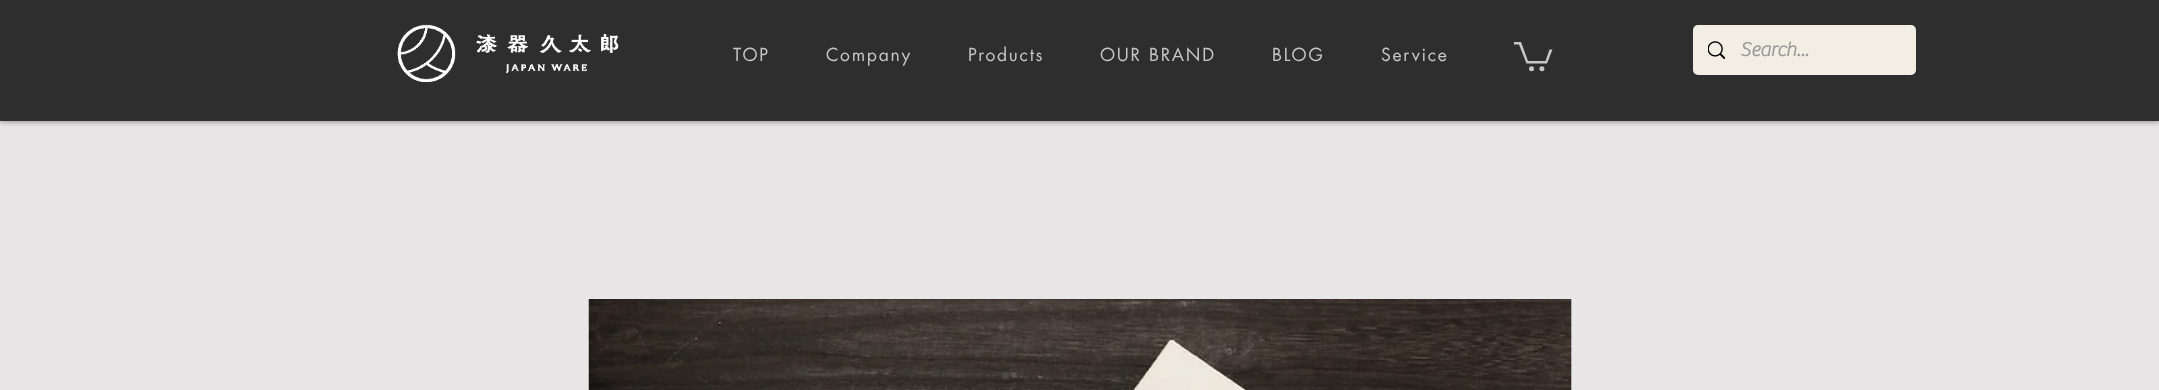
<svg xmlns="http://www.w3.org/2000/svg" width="2159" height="390">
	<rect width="100%" height="100%" fill="#E8E6E6" />
	<rect x="0" y="0" width="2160" height="121" fill="#000000" fill-opacity="0.5" filter="blur(3px)" />
	<rect x="0" y="0" width="2159" height="121" fill="#2F2E2E" />
	<image x="397" y="24" width="222" height="58" href="assets/img1.png" />
	<g font-family="futura" font-size="17.5" letter-spacing="1.75" fill="#C7C7C7">
		<text x="733" y="61">TOP</text>
		<text x="826" y="61">Company</text>
		<text x="968" y="61">Products</text>
		<text x="1100" y="61">OUR BRAND</text>
		<text x="1272" y="61">BLOG</text>
		<text x="1381" y="61">Service</text>
	</g>
	<path d="M1552.5 49.5L1547 63.5H1526.5L1519 44.5H1514V42H1521L1528 61H1545.5L1549.5 49.5" fill="#C7C7C7" />
	<circle cx="1541.9" cy="68.7" r="2.5" fill="#C7C7C7" />
	<circle cx="1531.5" cy="68.7" r="2.5" fill="#C7C7C7" />
	<rect x="1693" y="25" width="223" height="50" rx="5" fill="#F2EEE4" />
	<image x="1708" y="41" width="17" height="18" href="assets/img2.png" />
	<text x="1740" y="56" font-family="'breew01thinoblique'" font-size="20" font-weight="700" fill="#999999">Search...</text>
	<image x="588" y="299" width="984" height="91" href="assets/img3.png" />
</svg>
